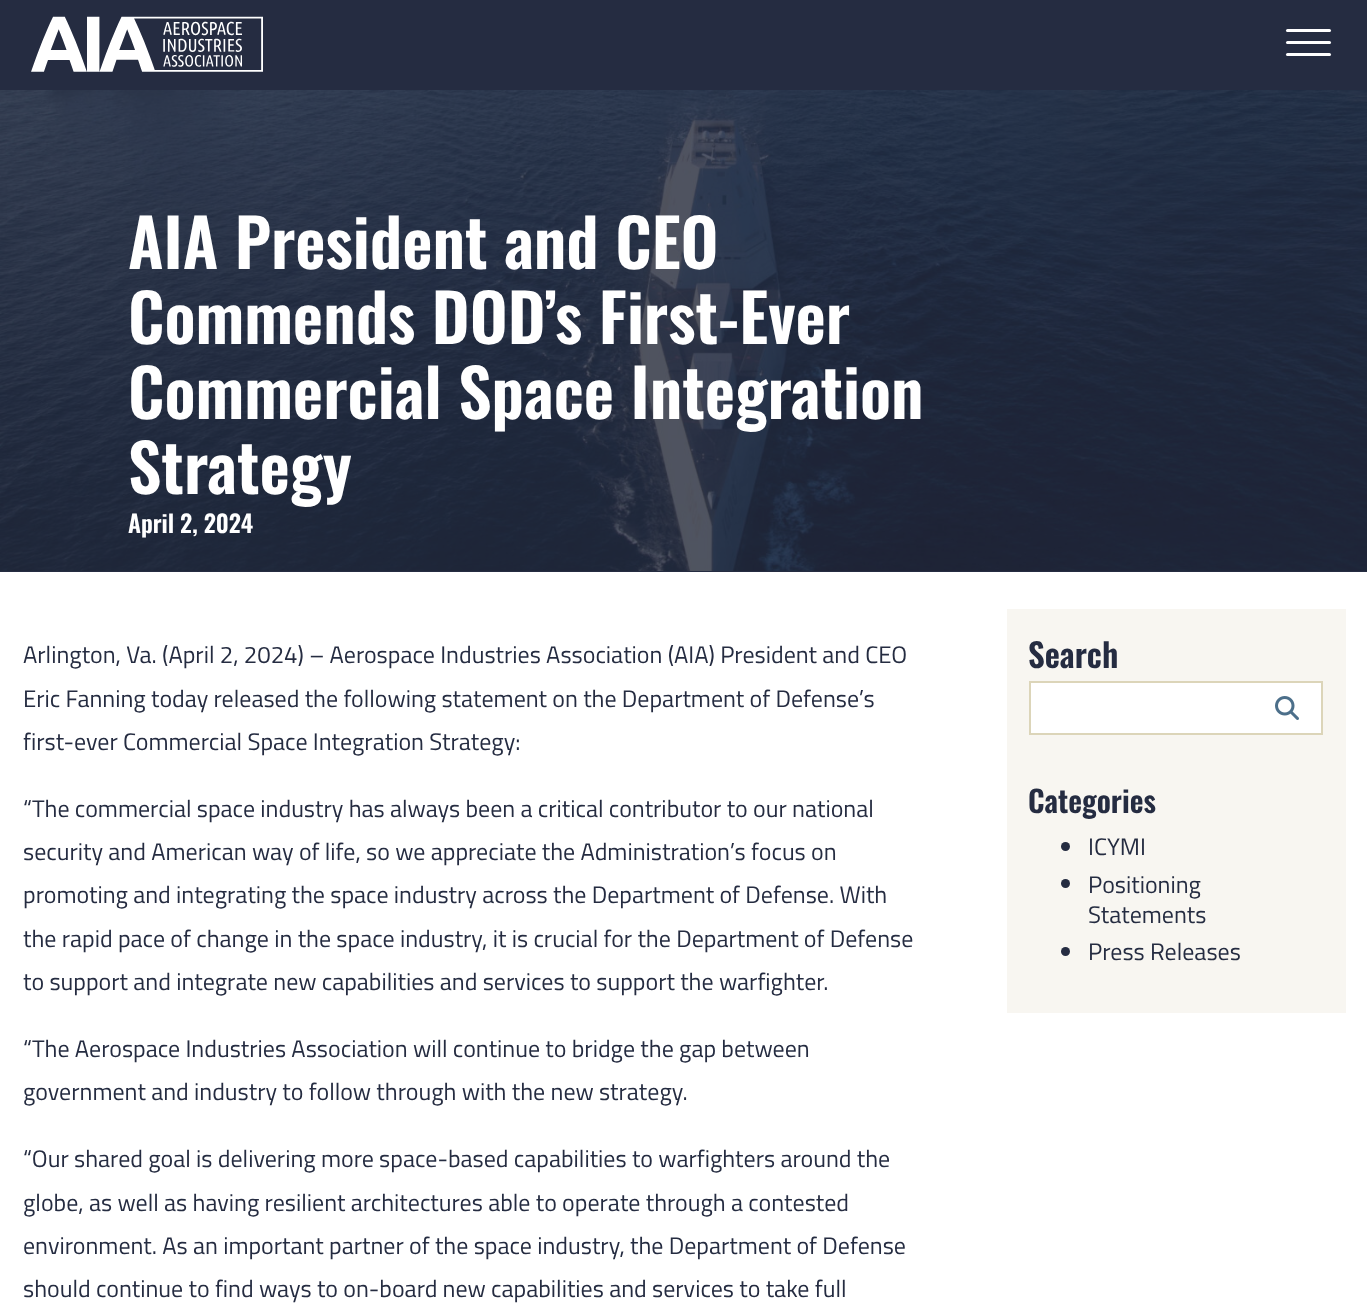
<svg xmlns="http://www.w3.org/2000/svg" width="1367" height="1306">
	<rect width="100%" height="100%" fill="#FFFFFF" />
	<rect x="0" y="0" width="1367" height="572" fill="#252C41" />
	<image x="31" y="16" width="232" height="56" href="assets/img1.png" />
	<rect x="1286" y="29" width="45" height="3" rx="1.5" fill="#FFFFFF" />
	<rect x="1286" y="41" width="45" height="3" rx="1.5" fill="#FFFFFF" />
	<rect x="1286" y="53" width="45" height="3" rx="1.5" fill="#FFFFFF" />
	<image x="0" y="90" width="1367" height="481" href="assets/img2.png" />
	<g font-family="Oswald" font-size="66" font-weight="600" fill="#FFFFFF">
		<text x="128" y="269">AIA President and CEO</text>
		<text x="128" y="344">Commends DOD’s First-Ever</text>
		<text x="128" y="419">Commercial Space Integration</text>
		<text x="128" y="494">Strategy</text>
	</g>
	<text x="128" y="533" font-family="Oswald" font-size="24" font-weight="600" fill="#FFFFFF">April 2, 2024</text>
	<g font-family="Titillium Web" font-size="24" fill="#252C41">
		<text x="23" y="663">Arlington, Va. (April 2, 2024) – Aerospace Industries Association (AIA) President and CEO</text>
		<text x="23" y="707">Eric Fanning today released the following statement on the Department of Defense’s</text>
		<text x="23" y="750">first-ever Commercial Space Integration Strategy:</text>
		<text x="23" y="817">“The commercial space industry has always been a critical contributor to our national</text>
		<text x="23" y="860">security and American way of life, so we appreciate the Administration’s focus on</text>
		<text x="23" y="903">promoting and integrating the space industry across the Department of Defense. With</text>
		<text x="23" y="947">the rapid pace of change in the space industry, it is crucial for the Department of Defense</text>
		<text x="23" y="990">to support and integrate new capabilities and services to support the warfighter.</text>
		<text x="23" y="1057">“The Aerospace Industries Association will continue to bridge the gap between</text>
		<text x="23" y="1100">government and industry to follow through with the new strategy.</text>
		<text x="23" y="1167">“Our shared goal is delivering more space-based capabilities to warfighters around the</text>
		<text x="23" y="1211">globe, as well as having resilient architectures able to operate through a contested</text>
		<text x="23" y="1254">environment. As an important partner of the space industry, the Department of Defense</text>
		<text x="23" y="1297">should continue to find ways to on-board new capabilities and services to take full</text>
	</g>
	<rect x="1007" y="609" width="339" height="404" fill="#F8F6F1" />
	<text x="1028" y="668" font-family="Oswald" font-size="33" font-weight="600" fill="#252C41">Search</text>
	<rect x="1030" y="682" width="292" height="52" fill="#FFFFFF" stroke="#DCD5B9" stroke-width="2" />
	<image x="1275" y="696" width="24" height="24" href="assets/img3.png" />
	<text x="1028" y="813" font-family="Oswald" font-size="30" font-weight="600" fill="#252C41">Categories</text>
	<circle cx="1065.5" cy="846.5" r="4.5" fill="#252C41" />
	<text x="1088" y="855" font-family="Titillium Web" font-size="24" fill="#252C41">ICYMI</text>
	<circle cx="1065.5" cy="883.5" r="4.5" fill="#252C41" />
	<g font-family="Titillium Web" font-size="24" fill="#252C41">
		<text x="1088" y="893">Positioning</text>
		<text x="1088" y="923">Statements</text>
	</g>
	<circle cx="1065.5" cy="951.5" r="4.5" fill="#252C41" />
	<text x="1088" y="960" font-family="Titillium Web" font-size="24" fill="#252C41">Press Releases</text>
</svg>
